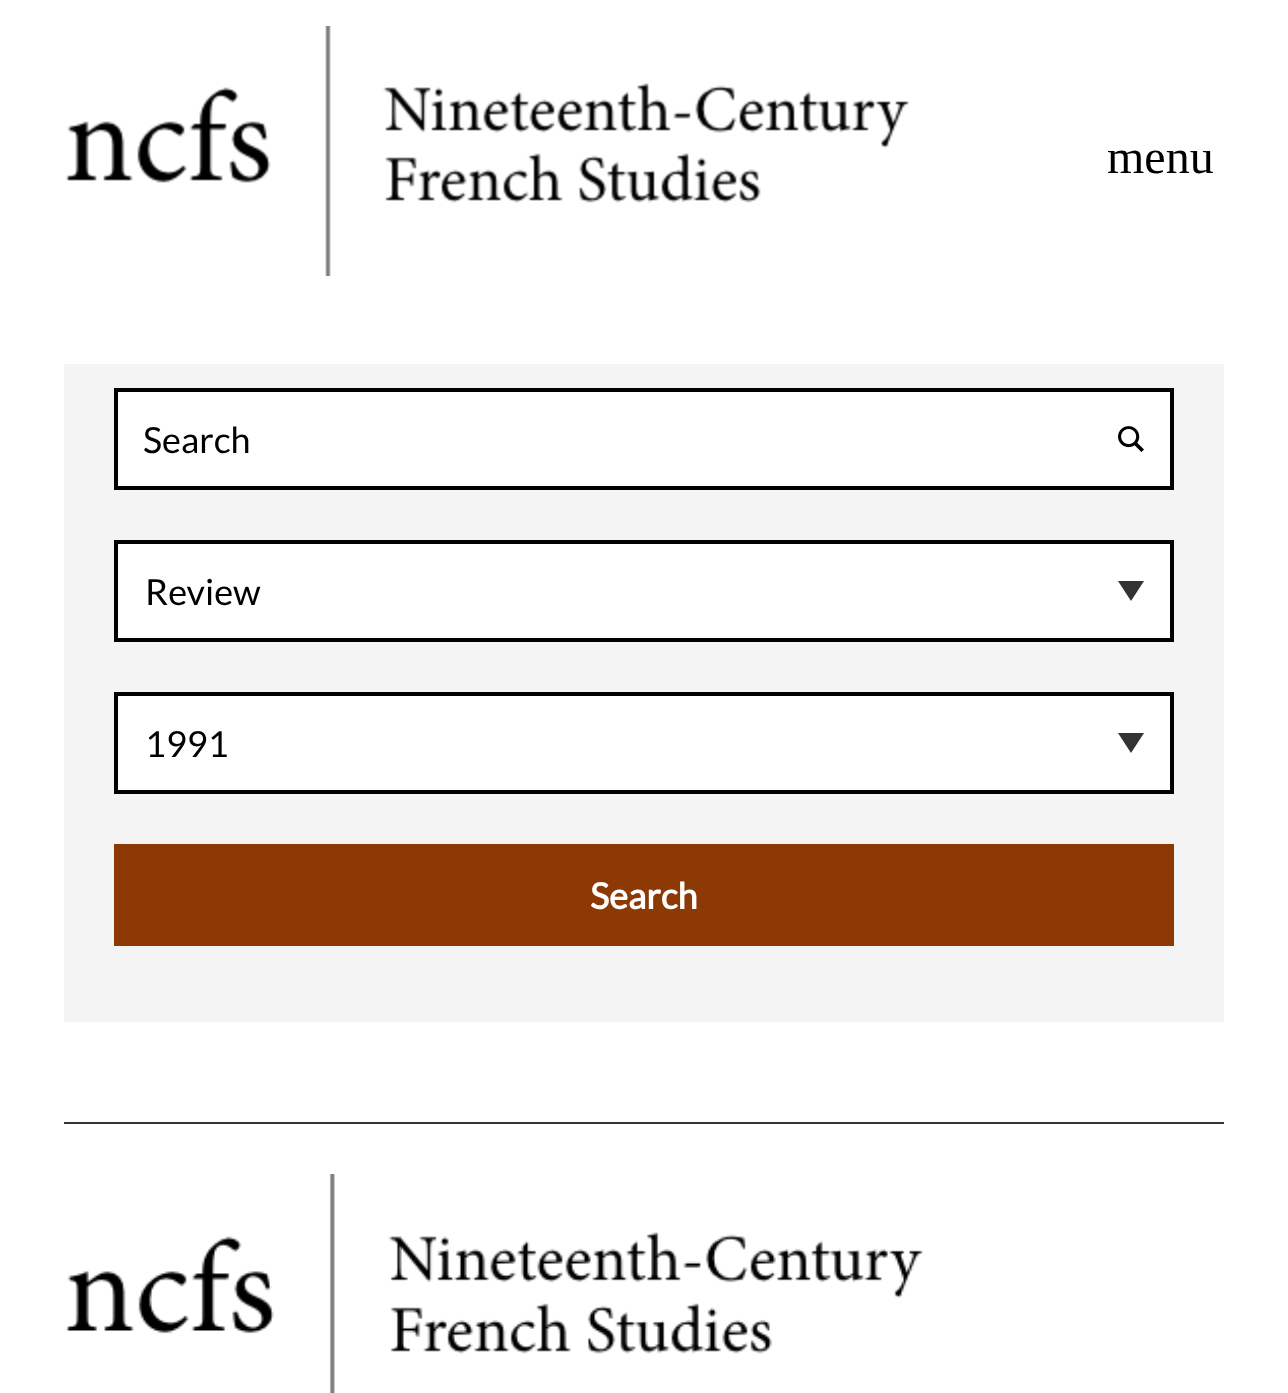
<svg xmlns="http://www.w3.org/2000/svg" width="1288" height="1393">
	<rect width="100%" height="100%" fill="#FFFFFF" />
	<image x="65" y="26" width="844" height="250" href="assets/img1.png" />
	<text x="1107" y="173" font-family="Liberation Serif" font-size="48" fill="#000000">menu</text>
	<rect x="64" y="364" width="1160" height="658" fill="#F4F4F4" />
	<rect x="118" y="392" width="1052" height="94" fill="#FFFFFF" />
	<image x="1118" y="426" width="26" height="26" href="assets/img2.png" />
	<rect x="116" y="390" width="1056" height="98" fill="none" stroke="#000000" stroke-width="4" />
	<text x="143" y="453" font-family="Lato" font-size="36" fill="#000000">Search</text>
	<rect x="118" y="544" width="1052" height="94" fill="#FFFFFF" />
	<path d="M1118 581H1144L1131 601Z" fill="#333333" />
	<rect x="116" y="542" width="1056" height="98" fill="none" stroke="#000000" stroke-width="4" />
	<text x="145" y="605" font-family="Lato" font-size="36" fill="#000000">Review</text>
	<rect x="118" y="696" width="1052" height="94" fill="#FFFFFF" />
	<path d="M1118 733H1144L1131 753Z" fill="#333333" />
	<rect x="116" y="694" width="1056" height="98" fill="none" stroke="#000000" stroke-width="4" />
	<text x="145" y="757" font-family="Lato" font-size="36" fill="#000000">1991</text>
	<rect x="114" y="844" width="1060" height="102" fill="#8C3904" />
	<text x="590" y="909" font-family="Lato" font-size="36" font-weight="700" fill="#FFFFFF">Search</text>
	<rect x="64" y="1122" width="1160" height="2" fill="#333333" />
	<image x="65" y="1174" width="858" height="219" href="assets/img3.png" />
</svg>
